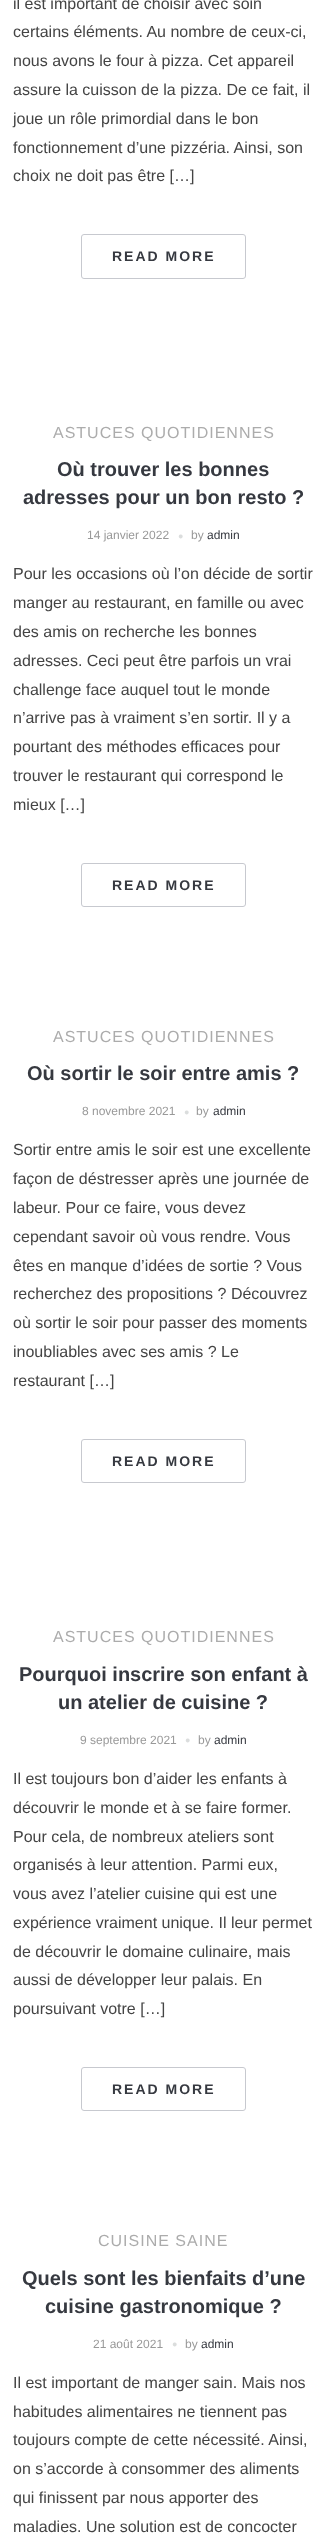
<svg xmlns="http://www.w3.org/2000/svg" width="327" height="2535">
	<rect width="100%" height="100%" fill="#FFFFFF" />
	<g font-family="Liberation Sans" font-size="16" fill="#444444">
		<text x="13" y="9">il est important de choisir avec soin</text>
		<text x="13" y="37">certains éléments. Au nombre de ceux-ci,</text>
		<text x="13" y="66">nous avons le four à pizza. Cet appareil</text>
		<text x="13" y="95">assure la cuisson de la pizza. De ce fait, il</text>
		<text x="13" y="124">joue un rôle primordial dans le bon</text>
		<text x="13" y="153">fonctionnement d’une pizzéria. Ainsi, son</text>
		<text x="13" y="181">choix ne doit pas être […]</text>
	</g>
	<rect x="81.5" y="234.5" width="164" height="44" rx="2.5" fill="none" stroke="#C7C9CF" />
	<text x="112" y="261" font-family="Liberation Sans" font-size="14" font-weight="700" letter-spacing="2" fill="#363940">READ MORE</text>
	<text x="53" y="438" font-family="Liberation Sans" font-size="16" letter-spacing="1" fill="#ACACAC">ASTUCES QUOTIDIENNES</text>
	<g font-family="Liberation Sans" font-size="20" font-weight="700" fill="#363940">
		<text x="57" y="476">Où trouver les bonnes</text>
		<text x="23" y="504">adresses pour un bon resto ?</text>
	</g>
	<text x="87" y="539" font-family="Liberation Sans" font-size="12" fill="#999999">14 janvier 2022</text>
	<text x="178" y="539" font-family="Liberation Sans" font-size="9" fill="#DBDDDD">●</text>
	<text x="191" y="539" font-family="Liberation Sans" font-size="12" fill="#999999">by</text>
	<text x="207" y="539" font-family="Liberation Sans" font-size="12" fill="#363940">admin</text>
	<g font-family="Liberation Sans" font-size="16" fill="#444444">
		<text x="13" y="579">Pour les occasions où l’on décide de sortir</text>
		<text x="13" y="608">manger au restaurant, en famille ou avec</text>
		<text x="13" y="637">des amis on recherche les bonnes</text>
		<text x="13" y="666">adresses. Ceci peut être parfois un vrai</text>
		<text x="13" y="695">challenge face auquel tout le monde</text>
		<text x="13" y="723">n’arrive pas à vraiment s’en sortir. Il y a</text>
		<text x="13" y="752">pourtant des méthodes efficaces pour</text>
		<text x="13" y="781">trouver le restaurant qui correspond le</text>
		<text x="13" y="810">mieux […]</text>
	</g>
	<rect x="81.5" y="863.5" width="164" height="43" rx="2.5" fill="none" stroke="#C7C9CF" />
	<text x="112" y="890" font-family="Liberation Sans" font-size="14" font-weight="700" letter-spacing="2" fill="#363940">READ MORE</text>
	<text x="53" y="1042" font-family="Liberation Sans" font-size="16" letter-spacing="1" fill="#ACACAC">ASTUCES QUOTIDIENNES</text>
	<text x="27" y="1080" font-family="Liberation Sans" font-size="20" font-weight="700" fill="#363940">Où sortir le soir entre amis ?</text>
	<text x="82" y="1115" font-family="Liberation Sans" font-size="12" fill="#999999">8 novembre 2021</text>
	<text x="184" y="1115" font-family="Liberation Sans" font-size="9" fill="#DBDDDD">●</text>
	<text x="196" y="1115" font-family="Liberation Sans" font-size="12" fill="#999999">by</text>
	<text x="213" y="1115" font-family="Liberation Sans" font-size="12" fill="#363940">admin</text>
	<g font-family="Liberation Sans" font-size="16" fill="#444444">
		<text x="13" y="1155">Sortir entre amis le soir est une excellente</text>
		<text x="13" y="1184">façon de déstresser après une journée de</text>
		<text x="13" y="1213">labeur. Pour ce faire, vous devez</text>
		<text x="13" y="1242">cependant savoir où vous rendre. Vous</text>
		<text x="13" y="1271">êtes en manque d’idées de sortie ? Vous</text>
		<text x="13" y="1299">recherchez des propositions ? Découvrez</text>
		<text x="13" y="1328">où sortir le soir pour passer des moments</text>
		<text x="13" y="1357">inoubliables avec ses amis ? Le</text>
		<text x="13" y="1386">restaurant […]</text>
	</g>
	<rect x="81.5" y="1439.5" width="164" height="43" rx="2.5" fill="none" stroke="#C7C9CF" />
	<text x="112" y="1466" font-family="Liberation Sans" font-size="14" font-weight="700" letter-spacing="2" fill="#363940">READ MORE</text>
	<text x="53" y="1642" font-family="Liberation Sans" font-size="16" letter-spacing="1" fill="#ACACAC">ASTUCES QUOTIDIENNES</text>
	<g font-family="Liberation Sans" font-size="20" font-weight="700" fill="#363940">
		<text x="19" y="1681">Pourquoi inscrire son enfant à</text>
		<text x="58" y="1709">un atelier de cuisine ?</text>
	</g>
	<text x="80" y="1744" font-family="Liberation Sans" font-size="12" fill="#999999">9 septembre 2021</text>
	<text x="185" y="1743" font-family="Liberation Sans" font-size="9" fill="#DBDDDD">●</text>
	<text x="198" y="1744" font-family="Liberation Sans" font-size="12" fill="#999999">by</text>
	<text x="214" y="1744" font-family="Liberation Sans" font-size="12" fill="#363940">admin</text>
	<g font-family="Liberation Sans" font-size="16" fill="#444444">
		<text x="13" y="1784">Il est toujours bon d’aider les enfants à</text>
		<text x="13" y="1813">découvrir le monde et à se faire former.</text>
		<text x="13" y="1842">Pour cela, de nombreux ateliers sont</text>
		<text x="13" y="1870">organisés à leur attention. Parmi eux,</text>
		<text x="13" y="1899">vous avez l’atelier cuisine qui est une</text>
		<text x="13" y="1928">expérience vraiment unique. Il leur permet</text>
		<text x="13" y="1957">de découvrir le domaine culinaire, mais</text>
		<text x="13" y="1985">aussi de développer leur palais. En</text>
		<text x="13" y="2014">poursuivant votre […]</text>
	</g>
	<rect x="81.5" y="2067.5" width="164" height="43" rx="2.5" fill="none" stroke="#C7C9CF" />
	<text x="112" y="2094" font-family="Liberation Sans" font-size="14" font-weight="700" letter-spacing="2" fill="#363940">READ MORE</text>
	<text x="98" y="2246" font-family="Liberation Sans" font-size="16" letter-spacing="1" fill="#ACACAC">CUISINE SAINE</text>
	<g font-family="Liberation Sans" font-size="20" font-weight="700" fill="#363940">
		<text x="22" y="2285">Quels sont les bienfaits d’une</text>
		<text x="45" y="2313">cuisine gastronomique ?</text>
	</g>
	<text x="93" y="2348" font-family="Liberation Sans" font-size="12" fill="#999999">21 août 2021</text>
	<text x="172" y="2347" font-family="Liberation Sans" font-size="9" fill="#DBDDDD">●</text>
	<text x="185" y="2348" font-family="Liberation Sans" font-size="12" fill="#999999">by</text>
	<text x="201" y="2348" font-family="Liberation Sans" font-size="12" fill="#363940">admin</text>
	<g font-family="Liberation Sans" font-size="16" fill="#444444">
		<text x="13" y="2388">Il est important de manger sain. Mais nos</text>
		<text x="13" y="2417">habitudes alimentaires ne tiennent pas</text>
		<text x="13" y="2445">toujours compte de cette nécessité. Ainsi,</text>
		<text x="13" y="2474">on s’accorde à consommer des aliments</text>
		<text x="13" y="2503">qui finissent par nous apporter des</text>
		<text x="13" y="2532">maladies. Une solution est de concocter</text>
	</g>
</svg>
